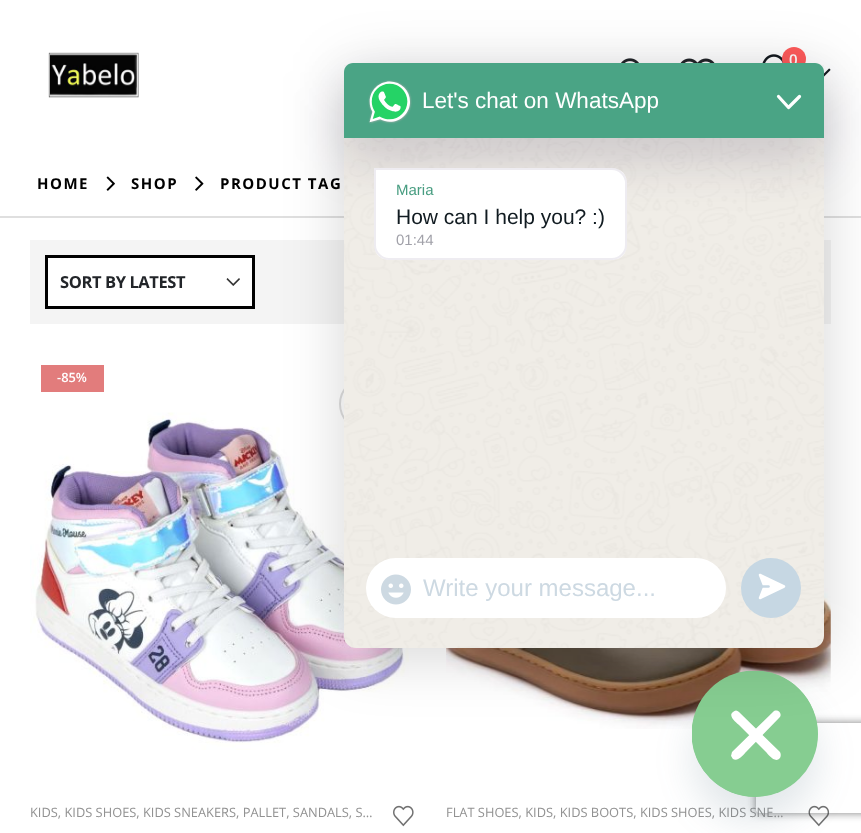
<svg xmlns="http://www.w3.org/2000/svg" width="861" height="833">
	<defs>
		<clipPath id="clip1"><path d="M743 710H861V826H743ZM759 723H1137C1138.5 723 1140 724.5 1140 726V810C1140 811.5 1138.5 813 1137 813H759C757.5 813 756 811.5 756 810V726C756 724.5 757.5 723 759 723Z" clip-rule="evenodd" /></clipPath>
		<clipPath id="clip2"><rect x="692" y="671" width="126" height="126" /></clipPath>
	</defs>
	<rect width="100%" height="100%" fill="#FFFFFF" />
	<image x="48" y="52" width="91" height="46" href="assets/img1.png" />
	<image x="621" y="58" width="18" height="5" href="assets/img2.png" />
	<image x="680" y="58" width="35" height="5" href="assets/img3.png" />
	<image x="762" y="54" width="21" height="9" href="assets/img4.png" />
	<circle cx="794" cy="59" r="12" fill="#FF5B5B" />
	<text x="789" y="65" font-family="Open Sans" font-size="15" font-weight="600" fill="#FFFFFF">0</text>
	<image x="824" y="68" width="7" height="9" href="assets/img5.png" />
	<rect x="0" y="216" width="861" height="2" fill="#DFDFDF" />
	<text x="37" y="189" font-family="Open Sans" font-size="15" font-weight="700" letter-spacing="1.5" fill="#000000">HOME</text>
	<image x="106" y="176" width="9" height="15" href="assets/img6.png" />
	<text x="131" y="189" font-family="Open Sans" font-size="15" font-weight="700" letter-spacing="1.5" fill="#000000">SHOP</text>
	<image x="195" y="176" width="9" height="15" href="assets/img7.png" />
	<text x="220" y="189" font-family="Open Sans" font-size="15" font-weight="700" letter-spacing="1.5" fill="#000000">PRODUCT TAG</text>
	<rect x="30" y="240" width="801" height="84" fill="#F4F4F4" />
	<rect x="48" y="258" width="204" height="48" fill="#FFFFFF" />
	<image x="226" y="278" width="14" height="8" href="assets/img8.png" />
	<rect x="46.5" y="256.5" width="207" height="51" fill="none" stroke="#000000" stroke-width="3" />
	<text x="60" y="288" font-family="Open Sans" font-size="16.5" font-weight="700" letter-spacing="-0.4" fill="#222529">SORT BY LATEST</text>
	<rect x="41" y="365" width="63" height="27" fill="#E27C7C" />
	<text x="57" y="382" font-family="Open Sans" font-size="12.85" font-weight="600" fill="#FFFFFF">-85%</text>
	<image x="30" y="412" width="379" height="338" href="assets/img9.png" />
	<circle cx="366" cy="404" r="26" fill="none" stroke="#DDDDDD" stroke-width="2" />
	<text x="30" y="817" font-family="Open Sans" font-size="12.85" fill="#929292">KIDS, KIDS SHOES, KIDS SNEAKERS, PALLET, SANDALS, S…</text>
	<image x="393" y="805" width="21" height="22" href="assets/img10.png" />
	<image x="446" y="478" width="385" height="251" href="assets/img11.png" />
	<text x="446" y="817" font-family="Open Sans" font-size="12.85" fill="#929292">FLAT SHOES, KIDS, KIDS BOOTS, KIDS SHOES, KIDS SNE…</text>
	<g clip-path="url(#clip1)">
		<rect x="756" y="723" width="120" height="90" rx="3" fill="#808080" filter="blur(4px)" />
	</g>
	<image x="808" y="805" width="22" height="22" href="assets/img12.png" />
	<rect x="692" y="695" width="126" height="126" rx="63" fill="#49687E" fill-opacity="0.16" filter="blur(18px)" />
	<circle cx="755" cy="734" r="63" fill="#86CD91" />
	<g clip-path="url(#clip2)">
		<circle cx="754.5" cy="733.5" r="63" fill="#86CD91" />
	</g>
	<path d="M739 712L780 752C781 754 781 756 780 758C775 764 768 754 766 752L739 725C738 724 727 716 733 712C735 710 737 710 739 712Z" fill="#FFFFFF" />
	<path d="M779 718L746 752C744 754 738 762 733 759C732 758 732 757 731 756L732 752L774 711C779 709 783 715 779 718Z" fill="#FFFFFF" />
	<rect x="344" y="71" width="480" height="585" rx="9" fill="#000000" fill-opacity="0.16" filter="blur(30px)" />
	<rect x="344" y="63" width="480" height="585" rx="12" fill="#F0EDE7" />
	<image x="344" y="65" width="480" height="583" href="assets/img13.png" />
	<rect x="344" y="87" width="480" height="75" rx="9" fill="#1A0E35" fill-opacity="0.16" filter="blur(24px)" />
	<path d="M353 63H815C820 63 824 67 824 72V138H344V72C344 67 348 63 353 63Z" fill="#4AA485" />
	<image x="368" y="80" width="44" height="44" href="assets/img14.png" />
	<text x="422" y="108" font-family="Liberation Sans" font-size="22.5" fill="#FFFFFF">Let's chat on WhatsApp</text>
	<path d="M778.5 96.5L788.5 107.5L799.5 96.5" fill="none" stroke="#FFFFFF" stroke-width="3.2" stroke-linecap="round" stroke-linejoin="round" />
	<path d="M374 168H612C620.5 168 627 174.5 627 183V245C627 253.5 620.5 260 612 260H389C380.5 260 374 253.5 374 245Z" fill="#FFFFFF" />
	<path d="M375 169H612C619.5 169 626 175.5 626 183V245C626 252.5 619.5 259 612 259H389C381.5 259 375 252.5 375 245Z" fill="none" stroke="#221147" stroke-opacity="0.08" stroke-width="2" />
	<text x="396" y="195" font-family="Liberation Sans" font-size="15" fill="#489D81">Maria</text>
	<text x="396" y="224" font-family="Liberation Sans" font-size="21" fill="#111B21">How can I help you? :)</text>
	<text x="396" y="245" font-family="Liberation Sans" font-size="15" fill="#A1A1A9">01:44</text>
	<rect x="366" y="558" width="360" height="60" rx="30" fill="#FFFFFF" />
	<image x="381" y="574" width="30" height="31" href="assets/img15.png" />
	<text x="423" y="596" font-family="Liberation Sans" font-size="24" fill="#CDD9E2">Write your message...</text>
	<circle cx="771" cy="588" r="30" fill="#C6D7E3" />
	<path d="M784 586.5L760 598L764.5 586.5L760 575Z" fill="#FFFFFF" stroke="#FFFFFF" stroke-width="2.5" stroke-linecap="round" stroke-linejoin="round" />
	<path d="M768.5 586.5H760.5" fill="none" stroke="#C6D7E3" stroke-width="2.5" stroke-linecap="round" stroke-linejoin="round" />
</svg>
